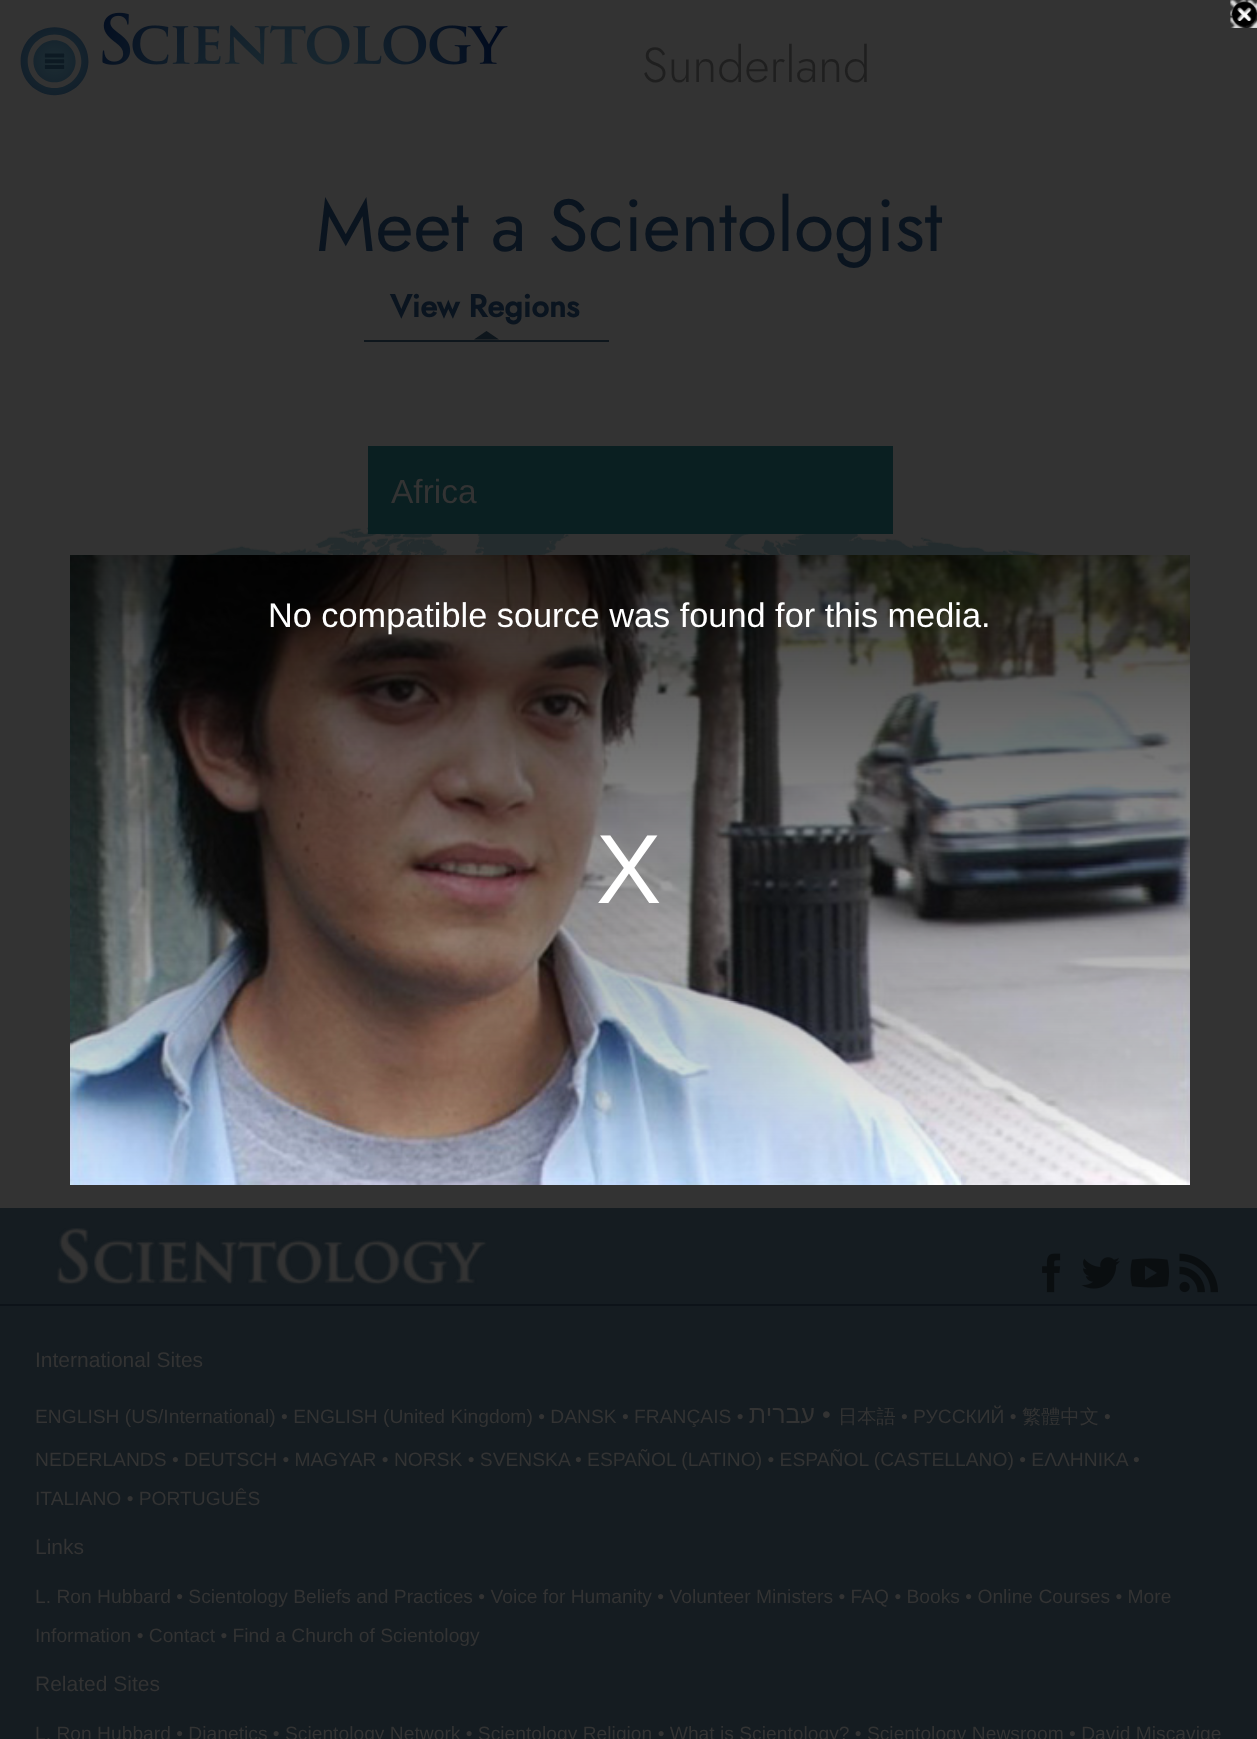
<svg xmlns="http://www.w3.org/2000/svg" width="1257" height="1739">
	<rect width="100%" height="100%" fill="#333333" />
	<image x="20" y="27" width="69" height="69" href="assets/img1.png" />
	<image x="102" y="12" width="406" height="53" href="assets/img2.png" />
	<text x="642" y="82" font-family="Jost" font-size="49" font-weight="300" fill="#1F1F1F">Sunderland</text>
	<text x="316" y="251" font-family="Jost" font-size="73.5" fill="#0A141F">Meet a Scientologist</text>
	<rect x="364" y="340" width="245" height="2" fill="#0E161C" />
	<text x="390" y="317" font-family="Jost" font-size="31.5" font-weight="700" fill="#0A141F">View Regions</text>
	<path d="M499 339.5H474L486.5 331Z" fill="#0E161C" />
	<image x="204" y="527" width="839" height="28" href="assets/img3.png" />
	<rect x="368" y="446" width="525" height="88" fill="#0A1F21" />
	<text x="391" y="503" font-family="Liberation Sans" font-size="33.5" fill="#333333">Africa</text>
	<image x="1230" y="0" width="27" height="28" href="assets/img4.png" />
	<image x="1231" y="1" width="26" height="27" href="assets/img5.png" />
	<image x="70" y="555" width="1120" height="630" href="assets/img6.png" />
	<text x="268" y="627" font-family="Liberation Sans" font-size="34.3" fill="#FFFFFF">No compatible source was found for this media.</text>
	<text x="596" y="903" font-family="Liberation Sans" font-size="98" fill="#FFFFFF">X</text>
	<rect x="0" y="1208" width="1257" height="531" fill="#151C21" />
	<image x="57" y="1228" width="430" height="57" href="assets/img7.png" />
	<image x="1042" y="1253" width="19" height="40" href="assets/img8.png" />
	<image x="1081" y="1257" width="39" height="32" href="assets/img9.png" />
	<image x="1130" y="1258" width="39" height="30" href="assets/img10.png" />
	<image x="1179" y="1253" width="39" height="40" href="assets/img11.png" />
	<rect x="0" y="1304" width="1257" height="2" fill="#0D1319" />
	<text x="35" y="1367" font-family="Liberation Sans" font-size="21" fill="#333333">International Sites</text>
	<text x="35" y="1423" font-family="Liberation Sans" font-size="19.25" fill="#333333">ENGLISH (US/International) • ENGLISH (United Kingdom) • DANSK • FRANÇAIS •</text>
	<text x="815" y="1423" font-family="Liberation Sans" font-size="25" direction="rtl" fill="#333333">עברית</text>
	<text x="822" y="1423" font-family="Liberation Sans" font-size="25" fill="#333333">•</text>
	<text x="838" y="1423" font-family="WenQuanYi Zen Hei" font-size="19.25" font-weight="500" fill="#333333">日本語</text>
	<text x="901" y="1423" font-family="Liberation Sans" font-size="19.25" fill="#333333">• РУССКИЙ •</text>
	<text x="1022" y="1423" font-family="WenQuanYi Zen Hei" font-size="19.25" font-weight="500" fill="#333333">繁體中文</text>
	<g font-family="Liberation Sans" font-size="19.25" fill="#333333">
		<text x="1104" y="1423">•</text>
		<text x="35" y="1466">NEDERLANDS • DEUTSCH • MAGYAR • NORSK • SVENSKA</text>
		<text x="575" y="1466">• ESPAÑOL (LATINO) • ESPAÑOL (CASTELLANO) • ΕΛΛΗΝΙΚA</text>
		<text x="1133" y="1466">•</text>
		<text x="35" y="1505">ITALIANO • PORTUGUÊS</text>
	</g>
	<text x="35" y="1554" font-family="Liberation Sans" font-size="21" fill="#333333">Links</text>
	<g font-family="Liberation Sans" font-size="19.25" fill="#333333">
		<text x="35" y="1603">L. Ron Hubbard • Scientology Beliefs and Practices • Voice for Humanity • Volunteer Ministers • FAQ • Books • Online Courses • More</text>
		<text x="35" y="1642">Information • Contact • Find a Church of Scientology</text>
	</g>
	<text x="35" y="1691" font-family="Liberation Sans" font-size="21" fill="#333333">Related Sites</text>
	<text x="35" y="1740" font-family="Liberation Sans" font-size="19.25" fill="#333333">L. Ron Hubbard • Dianetics • Scientology Network • Scientology Religion • What is Scientology? • Scientology Newsroom • David Miscavige</text>
</svg>
